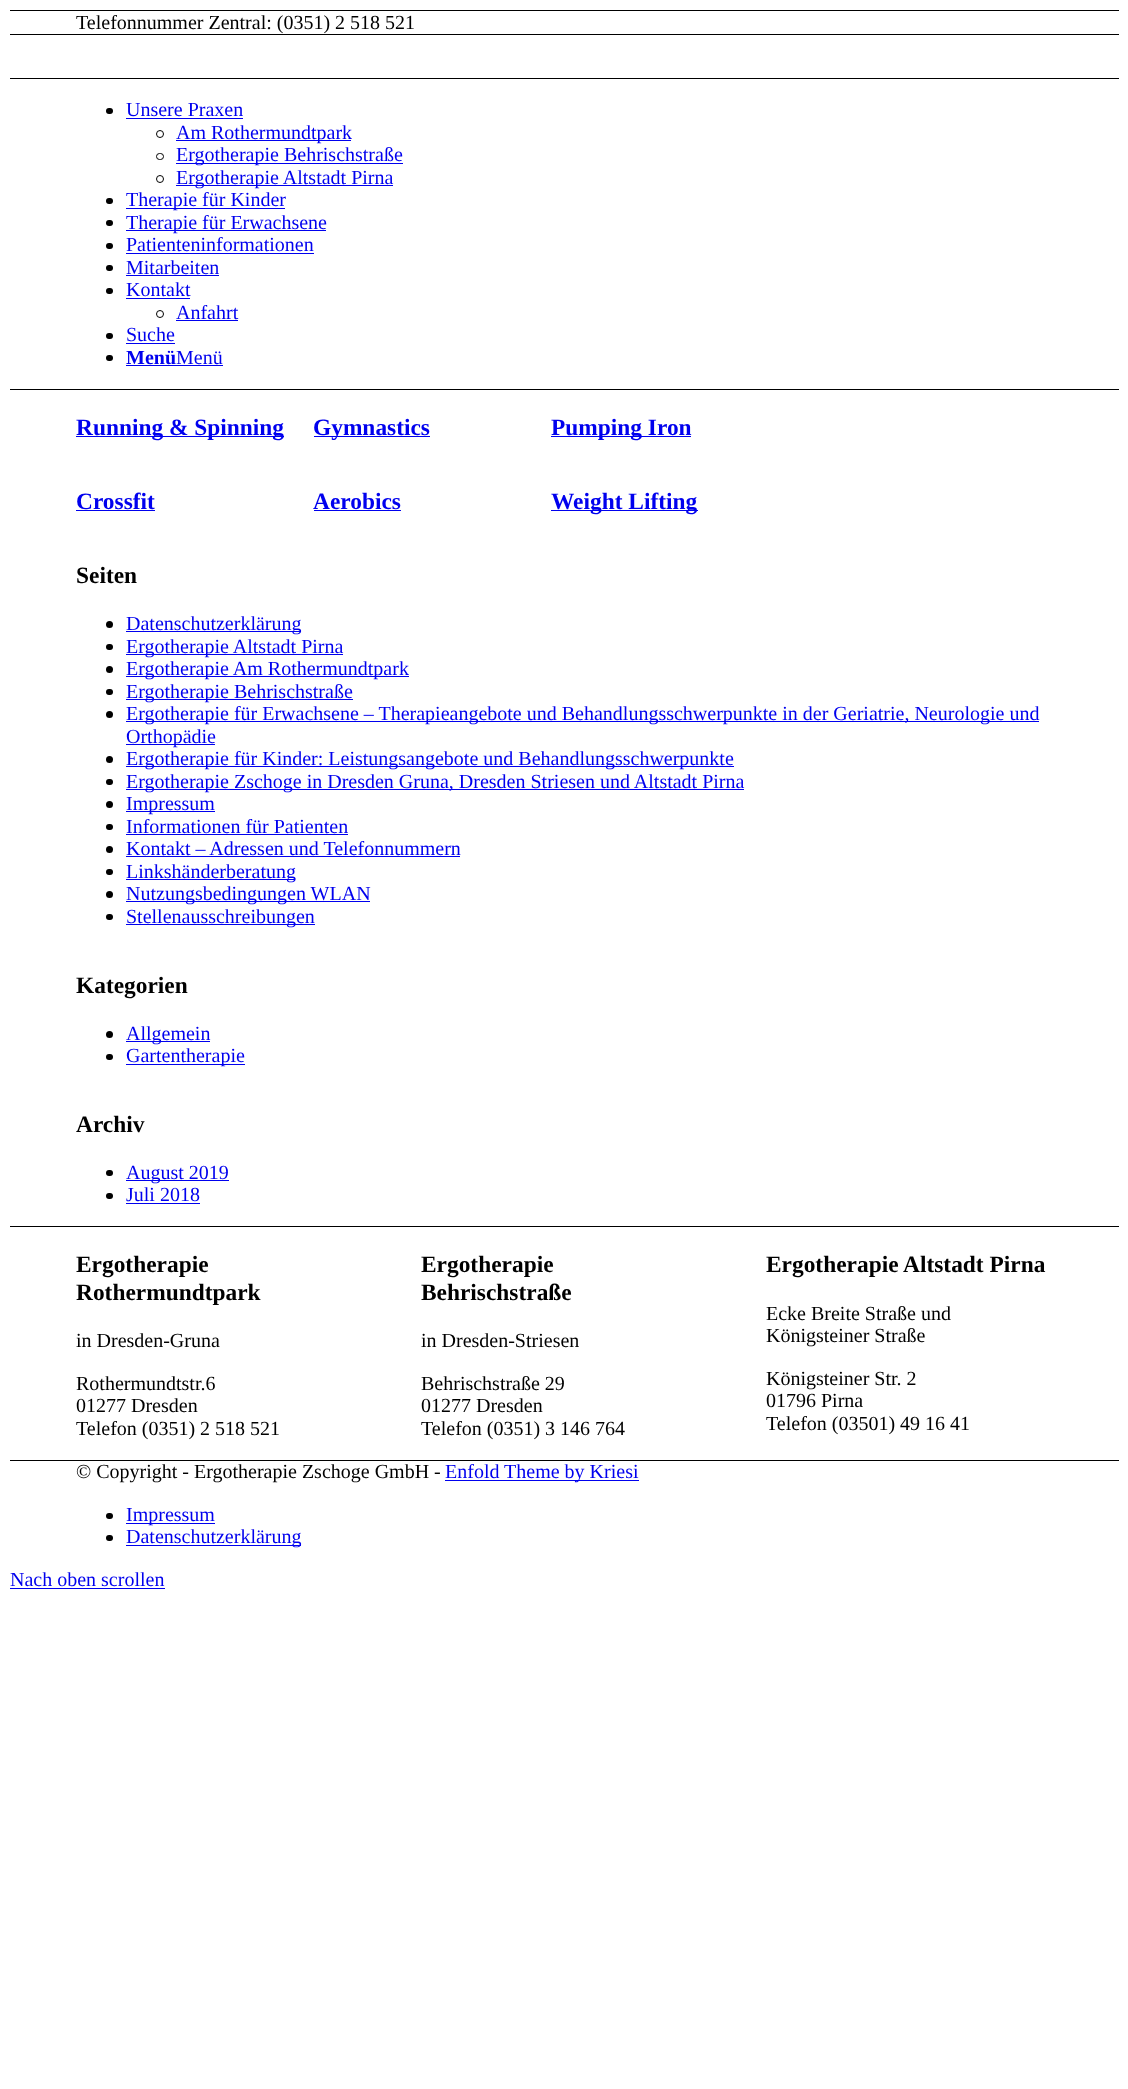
<svg xmlns="http://www.w3.org/2000/svg" width="1128" height="2089">
	<rect width="100%" height="100%" fill="#FFFFFF" />
	<rect x="10" y="10" width="1109" height="1" fill="#000000" />
	<text x="76" y="29" font-family="Liberation Serif" font-size="20" fill="#000000">Telefonnummer Zentral: (0351) 2 518 521</text>
	<rect x="10" y="34" width="1109" height="1" fill="#000000" />
	<rect x="10" y="78" width="1109" height="1" fill="#000000" />
	<rect x="106" y="108" width="7" height="6" rx="3" fill="#000000" />
	<text x="126" y="116" font-family="Liberation Serif" font-size="20" fill="#0000EE">Unsere Praxen</text>
	<rect x="126" y="118" width="117" height="1" fill="#0000EE" />
	<circle cx="160" cy="134" r="3.5" fill="none" stroke="#000000" />
	<rect x="176" y="140" width="175" height="1" fill="#0000EE" />
	<text x="176" y="139" font-family="Liberation Serif" font-size="20" fill="#0000EE">Am Rothermundtpark</text>
	<rect x="156.5" y="153.5" width="7" height="6" rx="3" fill="none" stroke="#000000" />
	<rect x="176" y="163" width="227" height="1" fill="#0000EE" />
	<text x="176" y="161" font-family="Liberation Serif" font-size="20" fill="#0000EE">Ergotherapie Behrischstraße</text>
	<circle cx="160" cy="179" r="3.5" fill="none" stroke="#000000" />
	<rect x="176" y="185" width="217" height="1" fill="#0000EE" />
	<text x="176" y="184" font-family="Liberation Serif" font-size="20" fill="#0000EE">Ergotherapie Altstadt Pirna</text>
	<rect x="106" y="198" width="7" height="6" rx="3" fill="#000000" />
	<rect x="126" y="208" width="159" height="1" fill="#0000EE" />
	<text x="126" y="206" font-family="Liberation Serif" font-size="20" fill="#0000EE">Therapie für Kinder</text>
	<rect x="106" y="220" width="7" height="6" rx="3" fill="#000000" />
	<rect x="126" y="230" width="200" height="1" fill="#0000EE" />
	<text x="126" y="229" font-family="Liberation Serif" font-size="20" fill="#0000EE">Therapie für Erwachsene</text>
	<rect x="106" y="243" width="7" height="6" rx="3" fill="#000000" />
	<text x="126" y="251" font-family="Liberation Serif" font-size="20" fill="#0000EE">Patienteninformationen</text>
	<rect x="126" y="253" width="188" height="1" fill="#0000EE" />
	<rect x="106" y="265" width="7" height="6" rx="3" fill="#000000" />
	<text x="126" y="274" font-family="Liberation Serif" font-size="20" fill="#0000EE">Mitarbeiten</text>
	<rect x="126" y="275" width="93" height="1" fill="#0000EE" />
	<rect x="106" y="288" width="7" height="6" rx="3" fill="#000000" />
	<text x="126" y="296" font-family="Liberation Serif" font-size="20" fill="#0000EE">Kontakt</text>
	<rect x="126" y="298" width="64" height="1" fill="#0000EE" />
	<circle cx="160" cy="314" r="3.5" fill="none" stroke="#000000" />
	<text x="176" y="319" font-family="Liberation Serif" font-size="20" fill="#0000EE">Anfahrt</text>
	<rect x="176" y="320" width="62" height="1" fill="#0000EE" />
	<rect x="106" y="333" width="7" height="6" rx="3" fill="#000000" />
	<text x="126" y="341" font-family="Liberation Serif" font-size="20" fill="#0000EE">Suche</text>
	<rect x="126" y="343" width="49" height="1" fill="#0000EE" />
	<rect x="106" y="355" width="7" height="6" rx="3" fill="#000000" />
	<text x="126" y="364" font-family="Liberation Serif" font-size="20" font-weight="700" fill="#0000EE">Menü</text>
	<rect x="126" y="365" width="97" height="1" fill="#0000EE" />
	<text x="176" y="364" font-family="Liberation Serif" font-size="20" fill="#0000EE">Menü</text>
	<rect x="10" y="389" width="1109" height="1" fill="#000000" />
	<rect x="76" y="436" width="208" height="1" fill="#0000EE" />
	<text x="76" y="435" font-family="Liberation Serif" font-size="23.4" font-weight="700" fill="#0000EE">Running &amp; Spinning</text>
	<rect x="314" y="436" width="116" height="1" fill="#0000EE" />
	<text x="313" y="435" font-family="Liberation Serif" font-size="23.4" font-weight="700" fill="#0000EE">Gymnastics</text>
	<rect x="551" y="436" width="140" height="1" fill="#0000EE" />
	<g font-family="Liberation Serif" font-size="23.4" font-weight="700" fill="#0000EE">
		<text x="551" y="435">Pumping Iron</text>
		<text x="76" y="509">Crossfit</text>
	</g>
	<rect x="76" y="510" width="79" height="1" fill="#0000EE" />
	<text x="313" y="509" font-family="Liberation Serif" font-size="23.4" font-weight="700" fill="#0000EE">Aerobics</text>
	<rect x="314" y="510" width="87" height="1" fill="#0000EE" />
	<rect x="551" y="510" width="147" height="1" fill="#0000EE" />
	<text x="551" y="509" font-family="Liberation Serif" font-size="23.4" font-weight="700" fill="#0000EE">Weight Lifting</text>
	<text x="76" y="583" font-family="Liberation Serif" font-size="23.4" font-weight="700" fill="#000000">Seiten</text>
	<circle cx="109.5" cy="624.5" r="3.5" fill="#000000" />
	<rect x="126" y="631" width="175" height="1" fill="#0000EE" />
	<text x="126" y="630" font-family="Liberation Serif" font-size="20" fill="#0000EE">Datenschutzerklärung</text>
	<rect x="106" y="644" width="7" height="6" rx="3" fill="#000000" />
	<rect x="126" y="654" width="217" height="1" fill="#0000EE" />
	<text x="126" y="653" font-family="Liberation Serif" font-size="20" fill="#0000EE">Ergotherapie Altstadt Pirna</text>
	<circle cx="109.5" cy="669.5" r="3.5" fill="#000000" />
	<rect x="126" y="676" width="283" height="1" fill="#0000EE" />
	<text x="126" y="675" font-family="Liberation Serif" font-size="20" fill="#0000EE">Ergotherapie Am Rothermundtpark</text>
	<rect x="106" y="689" width="7" height="6" rx="3" fill="#000000" />
	<rect x="126" y="699" width="227" height="1" fill="#0000EE" />
	<text x="126" y="698" font-family="Liberation Serif" font-size="20" fill="#0000EE">Ergotherapie Behrischstraße</text>
	<circle cx="109.5" cy="714.5" r="3.5" fill="#000000" />
	<rect x="126" y="721" width="913" height="1" fill="#0000EE" />
	<text x="126" y="720" font-family="Liberation Serif" font-size="20" fill="#0000EE">Ergotherapie für Erwachsene – Therapieangebote und Behandlungsschwerpunkte in der Geriatrie, Neurologie und</text>
	<rect x="126" y="744" width="89" height="1" fill="#0000EE" />
	<text x="126" y="743" font-family="Liberation Serif" font-size="20" fill="#0000EE">Orthopädie</text>
	<circle cx="109.5" cy="759.5" r="3.5" fill="#000000" />
	<rect x="126" y="766" width="608" height="1" fill="#0000EE" />
	<text x="126" y="765" font-family="Liberation Serif" font-size="20" fill="#0000EE">Ergotherapie für Kinder: Leistungsangebote und Behandlungsschwerpunkte</text>
	<rect x="106" y="779" width="7" height="6" rx="3" fill="#000000" />
	<rect x="126" y="789" width="618" height="1" fill="#0000EE" />
	<text x="126" y="788" font-family="Liberation Serif" font-size="20" fill="#0000EE">Ergotherapie Zschoge in Dresden Gruna, Dresden Striesen und Altstadt Pirna</text>
	<circle cx="109.5" cy="804.5" r="3.5" fill="#000000" />
	<rect x="126" y="811" width="89" height="1" fill="#0000EE" />
	<text x="126" y="810" font-family="Liberation Serif" font-size="20" fill="#0000EE">Impressum</text>
	<rect x="106" y="824" width="7" height="6" rx="3" fill="#000000" />
	<text x="126" y="833" font-family="Liberation Serif" font-size="20" fill="#0000EE">Informationen für Patienten</text>
	<rect x="126" y="834" width="222" height="1" fill="#0000EE" />
	<circle cx="109.5" cy="849.5" r="3.5" fill="#000000" />
	<text x="126" y="855" font-family="Liberation Serif" font-size="20" fill="#0000EE">Kontakt – Adressen und Telefonnummern</text>
	<rect x="126" y="856" width="334" height="1" fill="#0000EE" />
	<rect x="106" y="869" width="7" height="6" rx="3" fill="#000000" />
	<rect x="126" y="879" width="169" height="1" fill="#0000EE" />
	<text x="126" y="878" font-family="Liberation Serif" font-size="20" fill="#0000EE">Linkshänderberatung</text>
	<circle cx="109.5" cy="894.5" r="3.5" fill="#000000" />
	<rect x="126" y="901" width="244" height="1" fill="#0000EE" />
	<text x="126" y="900" font-family="Liberation Serif" font-size="20" fill="#0000EE">Nutzungsbedingungen WLAN</text>
	<rect x="106" y="914" width="7" height="6" rx="3" fill="#000000" />
	<rect x="126" y="924" width="189" height="1" fill="#0000EE" />
	<text x="126" y="923" font-family="Liberation Serif" font-size="20" fill="#0000EE">Stellenausschreibungen</text>
	<text x="76" y="993" font-family="Liberation Serif" font-size="23.4" font-weight="700" fill="#000000">Kategorien</text>
	<circle cx="109.5" cy="1034.5" r="3.5" fill="#000000" />
	<rect x="126" y="1041" width="84" height="1" fill="#0000EE" />
	<text x="126" y="1040" font-family="Liberation Serif" font-size="20" fill="#0000EE">Allgemein</text>
	<rect x="106" y="1054" width="7" height="6" rx="3" fill="#000000" />
	<rect x="126" y="1064" width="119" height="1" fill="#0000EE" />
	<text x="126" y="1062" font-family="Liberation Serif" font-size="20" fill="#0000EE">Gartentherapie</text>
	<text x="76" y="1132" font-family="Liberation Serif" font-size="23.4" font-weight="700" fill="#000000">Archiv</text>
	<rect x="106" y="1170" width="7" height="6" rx="3" fill="#000000" />
	<rect x="126" y="1180" width="103" height="1" fill="#0000EE" />
	<text x="126" y="1179" font-family="Liberation Serif" font-size="20" fill="#0000EE">August 2019</text>
	<rect x="106" y="1193" width="7" height="6" rx="3" fill="#000000" />
	<text x="126" y="1201" font-family="Liberation Serif" font-size="20" fill="#0000EE">Juli 2018</text>
	<rect x="126" y="1203" width="74" height="1" fill="#0000EE" />
	<rect x="10" y="1226" width="1109" height="1" fill="#000000" />
	<g font-family="Liberation Serif" font-size="23.4" font-weight="700" fill="#000000">
		<text x="76" y="1272">Ergotherapie</text>
		<text x="76" y="1300">Rothermundtpark</text>
	</g>
	<g font-family="Liberation Serif" font-size="20" fill="#000000">
		<text x="76" y="1347">in Dresden-Gruna</text>
		<text x="76" y="1390">Rothermundtstr.6</text>
		<text x="76" y="1412">01277 Dresden</text>
		<text x="76" y="1435">Telefon (0351) 2 518 521</text>
	</g>
	<g font-family="Liberation Serif" font-size="23.4" font-weight="700" fill="#000000">
		<text x="421" y="1272">Ergotherapie</text>
		<text x="421" y="1300">Behrischstraße</text>
	</g>
	<g font-family="Liberation Serif" font-size="20" fill="#000000">
		<text x="421" y="1347">in Dresden-Striesen</text>
		<text x="421" y="1390">Behrischstraße 29</text>
		<text x="421" y="1412">01277 Dresden</text>
		<text x="421" y="1435">Telefon (0351) 3 146 764</text>
	</g>
	<text x="766" y="1272" font-family="Liberation Serif" font-size="23.4" font-weight="700" fill="#000000">Ergotherapie Altstadt Pirna</text>
	<g font-family="Liberation Serif" font-size="20" fill="#000000">
		<text x="766" y="1320">Ecke Breite Straße und</text>
		<text x="766" y="1342">Königsteiner Straße</text>
		<text x="766" y="1385">Königsteiner Str. 2</text>
		<text x="766" y="1407">01796 Pirna</text>
		<text x="766" y="1430">Telefon (03501) 49 16 41</text>
	</g>
	<rect x="10" y="1460" width="1109" height="1" fill="#000000" />
	<text x="76" y="1478" font-family="Liberation Serif" font-size="20" fill="#000000">© Copyright - Ergotherapie Zschoge GmbH -</text>
	<rect x="445" y="1480" width="194" height="1" fill="#0000EE" />
	<text x="445" y="1478" font-family="Liberation Serif" font-size="20" fill="#0000EE">Enfold Theme by Kriesi</text>
	<rect x="106" y="1513" width="7" height="6" rx="3" fill="#000000" />
	<rect x="126" y="1523" width="89" height="1" fill="#0000EE" />
	<text x="126" y="1521" font-family="Liberation Serif" font-size="20" fill="#0000EE">Impressum</text>
	<rect x="106" y="1535" width="7" height="6" rx="3" fill="#000000" />
	<rect x="126" y="1545" width="175" height="1" fill="#0000EE" />
	<g font-family="Liberation Serif" font-size="20" fill="#0000EE">
		<text x="126" y="1543">Datenschutzerklärung</text>
		<text x="10" y="1586">Nach oben scrollen</text>
	</g>
	<rect x="10" y="1588" width="155" height="1" fill="#0000EE" />
</svg>
